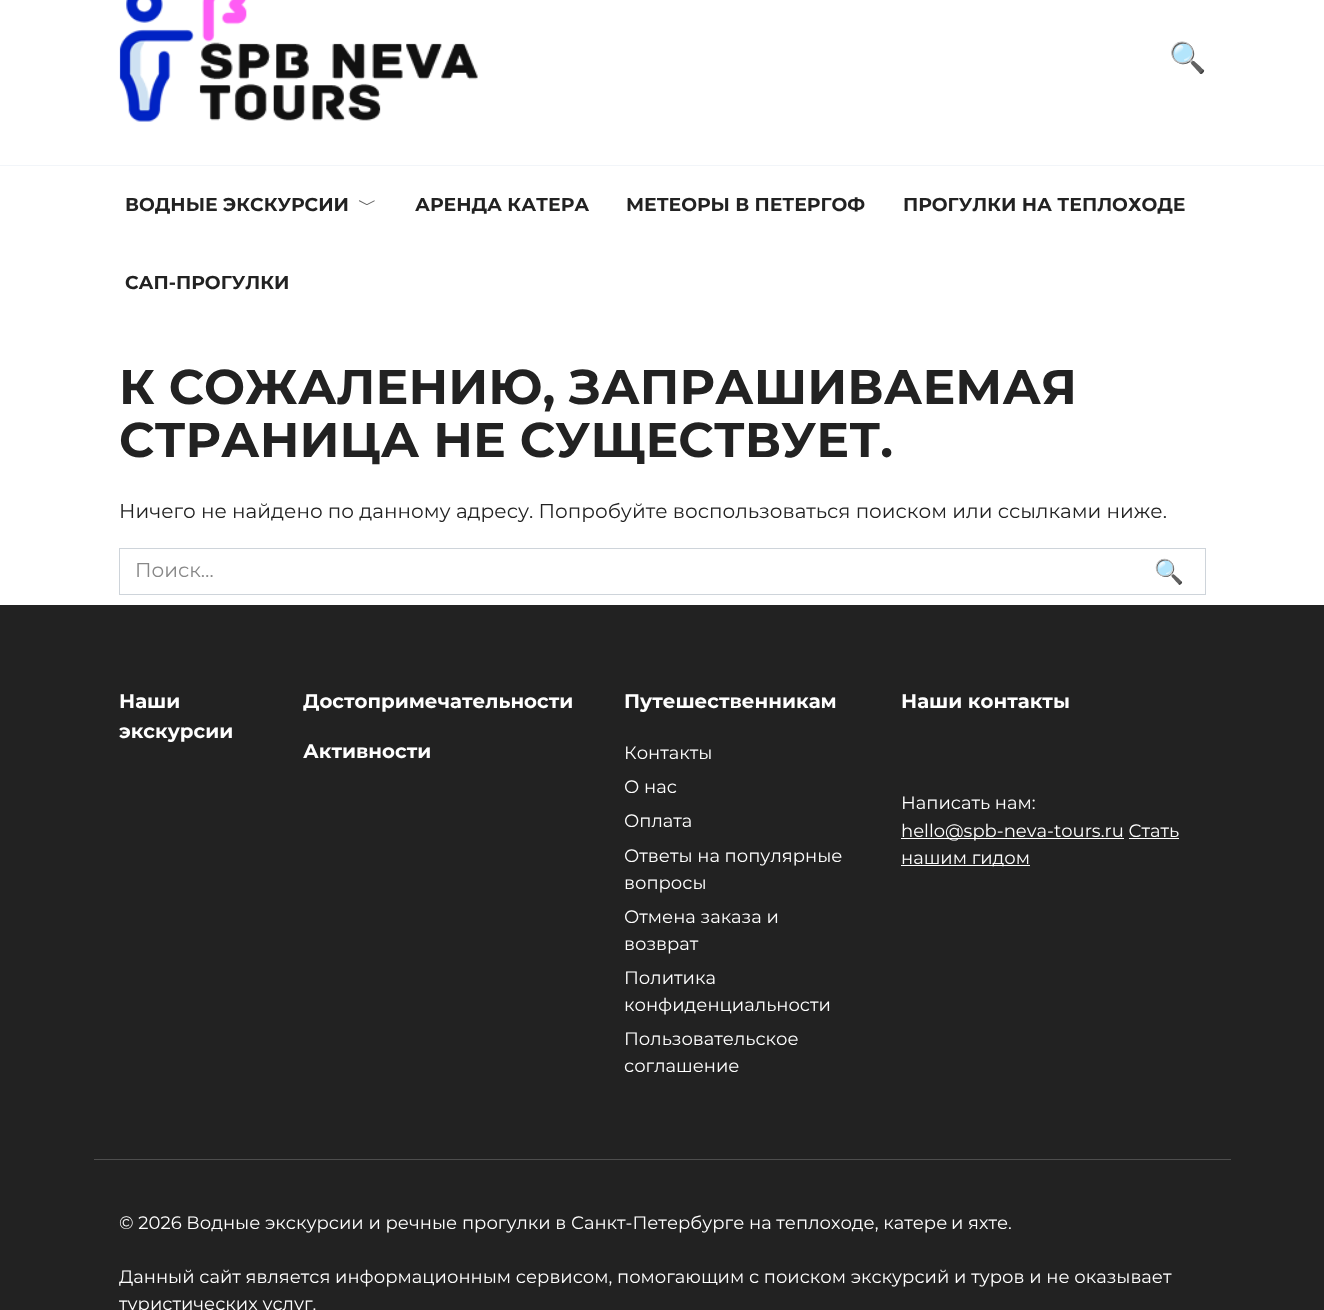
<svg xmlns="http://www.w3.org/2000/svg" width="1324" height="1310">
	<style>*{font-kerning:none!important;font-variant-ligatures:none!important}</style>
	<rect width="100%" height="100%" fill="#FFFFFF" />
	<rect x="0" y="165" width="1324" height="1" fill="#F2F5F9" />
	<image x="119" y="0" width="359" height="122" href="assets/img1.png" />
	<text x="1169" y="68" font-family="Noto Color Emoji" font-size="30" fill="#222222">🔍</text>
	<text x="125" y="211" font-family="Montserrat" font-size="18.75" font-weight="700" fill="#222222">ВОДНЫЕ ЭКСКУРСИИ</text>
	<text x="358" y="211" font-family="WenQuanYi Zen Hei" font-size="18.75" font-weight="500" fill="#646464">﹀</text>
	<g font-family="Montserrat" font-size="18.75" font-weight="700" fill="#222222">
		<text x="415" y="211">АРЕНДА КАТЕРА</text>
		<text x="626" y="211">МЕТЕОРЫ В ПЕТЕРГОФ</text>
		<text x="903" y="211">ПРОГУЛКИ НА ТЕПЛОХОДЕ</text>
		<text x="125" y="289">САП-ПРОГУЛКИ</text>
	</g>
	<g font-family="Montserrat" font-size="48.75" font-weight="700" fill="#222222">
		<text x="119" y="404">К СОЖАЛЕНИЮ, ЗАПРАШИВАЕМАЯ</text>
		<text x="119" y="457">СТРАНИЦА НЕ СУЩЕСТВУЕТ.</text>
	</g>
	<text x="119" y="518" font-family="Montserrat" font-size="20" fill="#222222">Ничего не найдено по данному адресу. Попробуйте воспользоваться поиском или ссылками ниже.</text>
	<rect x="119.5" y="548.5" width="1086" height="46" fill="none" stroke="#CED4DA" />
	<text x="135" y="577" font-family="Montserrat" font-size="20" fill="#888888">Поиск…</text>
	<text x="1154" y="580" font-family="Noto Color Emoji" font-size="24" fill="#000000">🔍</text>
	<rect x="0" y="605" width="1324" height="705" fill="#222222" />
	<rect x="94" y="1159" width="1137" height="1" fill="#4E4E4E" />
	<g font-family="Montserrat" font-size="19.75" font-weight="700" fill="#FFFFFF">
		<text x="119" y="708">Наши</text>
		<text x="119" y="738">экскурсии</text>
		<text x="303" y="708">Достопримечательности</text>
		<text x="303" y="758">Активности</text>
		<text x="624" y="708">Путешественникам</text>
	</g>
	<g font-family="Montserrat" font-size="18" fill="#FFFFFF">
		<text x="624" y="759">Контакты</text>
		<text x="624" y="793">О нас</text>
		<text x="624" y="827">Оплата</text>
		<text x="624" y="862">Ответы на популярные</text>
		<text x="624" y="889">вопросы</text>
		<text x="624" y="923">Отмена заказа и</text>
		<text x="624" y="950">возврат</text>
		<text x="624" y="984">Политика</text>
		<text x="624" y="1011">конфиденциальности</text>
		<text x="624" y="1045">Пользовательское</text>
		<text x="624" y="1072">соглашение</text>
	</g>
	<text x="901" y="708" font-family="Montserrat" font-size="19.75" font-weight="700" fill="#FFFFFF">Наши контакты</text>
	<text x="901" y="809" font-family="Montserrat" font-size="18" fill="#FFFFFF">Написать нам:</text>
	<rect x="901" y="838" width="223" height="1" fill="#FFFFFF" />
	<text x="901" y="837" font-family="Montserrat" font-size="18" fill="#FFFFFF">hello@spb-neva-tours.ru Стать</text>
	<rect x="901" y="865" width="129" height="1" fill="#FFFFFF" />
	<text x="901" y="864" font-family="Montserrat" font-size="18" fill="#FFFFFF">нашим гидом</text>
	<rect x="1129" y="838" width="50" height="1" fill="#FFFFFF" />
	<g font-family="Montserrat" font-size="18" fill="#FFFFFF">
		<text x="119" y="1229">© 2026 Водные экскурсии и речные прогулки в Санкт-Петербурге на теплоходе, катере</text>
		<text x="951" y="1229">и яхте.</text>
		<text x="119" y="1283">Данный сайт является информационным сервисом, помогающим с поиском экскурсий и туров и не оказывает</text>
		<text x="119" y="1310">туристических услуг.</text>
	</g>
</svg>
